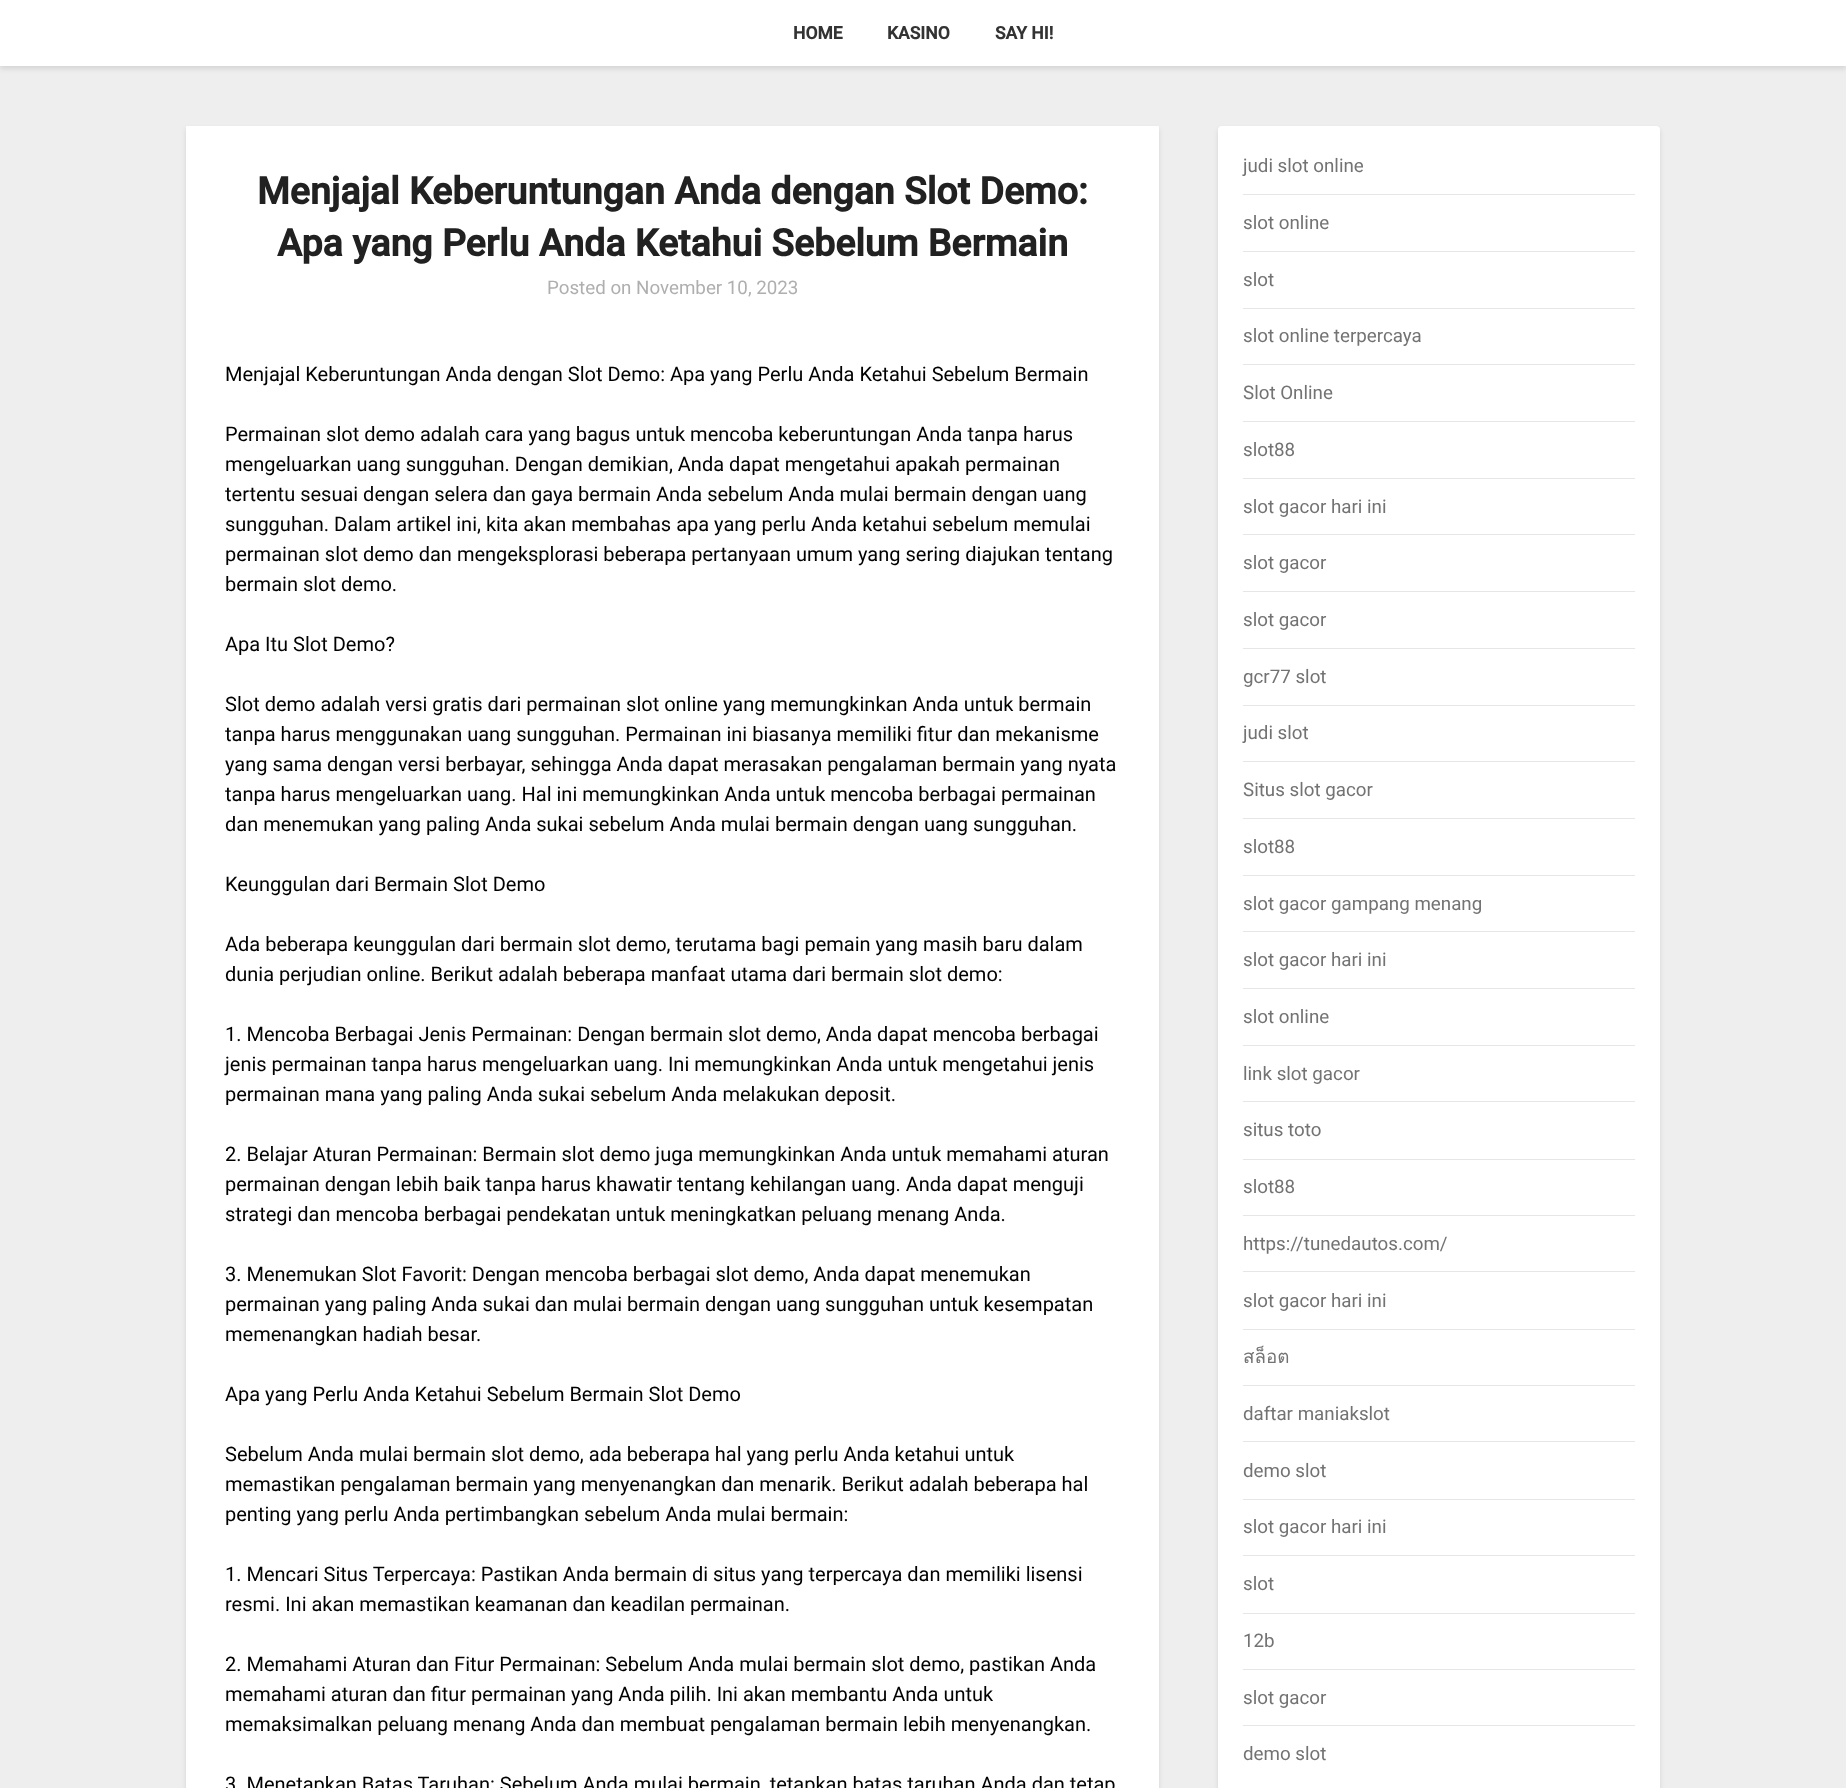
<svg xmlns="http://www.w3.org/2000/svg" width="1846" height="1788">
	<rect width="100%" height="100%" fill="#EEEEEE" />
	<rect x="0" y="3" width="1846" height="66" fill="#000000" fill-opacity="0.1" filter="blur(2.5px)" />
	<rect x="0" y="0" width="1846" height="66" fill="#FFFFFF" />
	<g font-family="Roboto" font-size="17.5" font-weight="700" fill="#333333">
		<text x="793" y="39">HOME</text>
		<text x="887" y="39">KASINO</text>
		<text x="995" y="39">SAY HI!</text>
	</g>
	<rect x="186" y="129" width="973" height="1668" rx="1" fill="#000000" fill-opacity="0.1" filter="blur(2.5px)" />
	<rect x="186" y="126" width="973" height="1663" rx="1" fill="#FFFFFF" />
	<g font-family="Roboto" font-size="37.5" font-weight="700" fill="#212121">
		<text x="257" y="204">Menjajal Keberuntungan Anda dengan Slot Demo:</text>
		<text x="277" y="256">Apa yang Perlu Anda Ketahui Sebelum Bermain</text>
	</g>
	<text x="547" y="294" font-family="Roboto" font-size="18.75" fill="#AFAFAF">Posted on November 10, 2023</text>
	<g font-family="Roboto" font-size="20" fill="#000000">
		<text x="225" y="381">Menjajal Keberuntungan Anda dengan Slot Demo: Apa yang Perlu Anda Ketahui Sebelum Bermain</text>
		<text x="225" y="441">Permainan slot demo adalah cara yang bagus untuk mencoba keberuntungan Anda tanpa harus</text>
		<text x="225" y="471">mengeluarkan uang sungguhan. Dengan demikian, Anda dapat mengetahui apakah permainan</text>
		<text x="225" y="501">tertentu sesuai dengan selera dan gaya bermain Anda sebelum Anda mulai bermain dengan uang</text>
		<text x="225" y="531">sungguhan. Dalam artikel ini, kita akan membahas apa yang perlu Anda ketahui sebelum memulai</text>
		<text x="225" y="561">permainan slot demo dan mengeksplorasi beberapa pertanyaan umum yang sering diajukan tentang</text>
		<text x="225" y="591">bermain slot demo.</text>
		<text x="225" y="651">Apa Itu Slot Demo?</text>
		<text x="225" y="711">Slot demo adalah versi gratis dari permainan slot online yang memungkinkan Anda untuk bermain</text>
		<text x="225" y="741">tanpa harus menggunakan uang sungguhan. Permainan ini biasanya memiliki fitur dan mekanisme</text>
		<text x="225" y="771">yang sama dengan versi berbayar, sehingga Anda dapat merasakan pengalaman bermain yang nyata</text>
		<text x="225" y="801">tanpa harus mengeluarkan uang. Hal ini memungkinkan Anda untuk mencoba berbagai permainan</text>
		<text x="225" y="831">dan menemukan yang paling Anda sukai sebelum Anda mulai bermain dengan uang sungguhan.</text>
		<text x="225" y="891">Keunggulan dari Bermain Slot Demo</text>
		<text x="225" y="951">Ada beberapa keunggulan dari bermain slot demo, terutama bagi pemain yang masih baru dalam</text>
		<text x="225" y="981">dunia perjudian online. Berikut adalah beberapa manfaat utama dari bermain slot demo:</text>
		<text x="225" y="1041">1. Mencoba Berbagai Jenis Permainan: Dengan bermain slot demo, Anda dapat mencoba berbagai</text>
		<text x="225" y="1071">jenis permainan tanpa harus mengeluarkan uang. Ini memungkinkan Anda untuk mengetahui jenis</text>
		<text x="225" y="1101">permainan mana yang paling Anda sukai sebelum Anda melakukan deposit.</text>
		<text x="225" y="1161">2. Belajar Aturan Permainan: Bermain slot demo juga memungkinkan Anda untuk memahami aturan</text>
		<text x="225" y="1191">permainan dengan lebih baik tanpa harus khawatir tentang kehilangan uang. Anda dapat menguji</text>
		<text x="225" y="1221">strategi dan mencoba berbagai pendekatan untuk meningkatkan peluang menang Anda.</text>
		<text x="225" y="1281">3. Menemukan Slot Favorit: Dengan mencoba berbagai slot demo, Anda dapat menemukan</text>
		<text x="225" y="1311">permainan yang paling Anda sukai dan mulai bermain dengan uang sungguhan untuk kesempatan</text>
		<text x="225" y="1341">memenangkan hadiah besar.</text>
		<text x="225" y="1401">Apa yang Perlu Anda Ketahui Sebelum Bermain Slot Demo</text>
		<text x="225" y="1461">Sebelum Anda mulai bermain slot demo, ada beberapa hal yang perlu Anda ketahui untuk</text>
		<text x="225" y="1491">memastikan pengalaman bermain yang menyenangkan dan menarik. Berikut adalah beberapa hal</text>
		<text x="225" y="1521">penting yang perlu Anda pertimbangkan sebelum Anda mulai bermain:</text>
		<text x="225" y="1581">1. Mencari Situs Terpercaya: Pastikan Anda bermain di situs yang terpercaya dan memiliki lisensi</text>
		<text x="225" y="1611">resmi. Ini akan memastikan keamanan dan keadilan permainan.</text>
		<text x="225" y="1671">2. Memahami Aturan dan Fitur Permainan: Sebelum Anda mulai bermain slot demo, pastikan Anda</text>
		<text x="225" y="1701">memahami aturan dan fitur permainan yang Anda pilih. Ini akan membantu Anda untuk</text>
		<text x="225" y="1731">memaksimalkan peluang menang Anda dan membuat pengalaman bermain lebih menyenangkan.</text>
		<text x="225" y="1791">3. Menetapkan Batas Taruhan: Sebelum Anda mulai bermain, tetapkan batas taruhan Anda dan tetap</text>
	</g>
	<rect x="1218" y="129" width="442" height="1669" rx="4" fill="#000000" fill-opacity="0.1" filter="blur(2.5px)" />
	<rect x="1218" y="126" width="442" height="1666" rx="4" fill="#FFFFFF" />
	<rect x="1243" y="194" width="392" height="1" fill="#E6E6E6" />
	<text x="1243" y="172" font-family="Roboto" font-size="18.75" fill="#737373">judi slot online</text>
	<rect x="1243" y="251" width="392" height="1" fill="#E6E6E6" />
	<text x="1243" y="229" font-family="Roboto" font-size="18.75" fill="#737373">slot online</text>
	<rect x="1243" y="308" width="392" height="1" fill="#E6E6E6" />
	<text x="1243" y="286" font-family="Roboto" font-size="18.75" fill="#737373">slot</text>
	<rect x="1243" y="364" width="392" height="1" fill="#E6E6E6" />
	<text x="1243" y="342" font-family="Roboto" font-size="18.75" fill="#737373">slot online terpercaya</text>
	<rect x="1243" y="421" width="392" height="1" fill="#E6E6E6" />
	<text x="1243" y="399" font-family="Roboto" font-size="18.75" fill="#737373">Slot Online</text>
	<rect x="1243" y="478" width="392" height="1" fill="#E6E6E6" />
	<text x="1243" y="456" font-family="Roboto" font-size="18.75" fill="#737373">slot88</text>
	<rect x="1243" y="534" width="392" height="1" fill="#E6E6E6" />
	<text x="1243" y="513" font-family="Roboto" font-size="18.75" fill="#737373">slot gacor hari ini</text>
	<rect x="1243" y="591" width="392" height="1" fill="#E6E6E6" />
	<text x="1243" y="569" font-family="Roboto" font-size="18.75" fill="#737373">slot gacor</text>
	<rect x="1243" y="648" width="392" height="1" fill="#E6E6E6" />
	<text x="1243" y="626" font-family="Roboto" font-size="18.75" fill="#737373">slot gacor</text>
	<rect x="1243" y="705" width="392" height="1" fill="#E6E6E6" />
	<text x="1243" y="683" font-family="Roboto" font-size="18.75" fill="#737373">gcr77 slot</text>
	<rect x="1243" y="761" width="392" height="1" fill="#E6E6E6" />
	<text x="1243" y="739" font-family="Roboto" font-size="18.75" fill="#737373">judi slot</text>
	<rect x="1243" y="818" width="392" height="1" fill="#E6E6E6" />
	<text x="1243" y="796" font-family="Roboto" font-size="18.75" fill="#737373">Situs slot gacor</text>
	<rect x="1243" y="875" width="392" height="1" fill="#E6E6E6" />
	<text x="1243" y="853" font-family="Roboto" font-size="18.75" fill="#737373">slot88</text>
	<rect x="1243" y="931" width="392" height="1" fill="#E6E6E6" />
	<text x="1243" y="910" font-family="Roboto" font-size="18.75" fill="#737373">slot gacor gampang menang</text>
	<rect x="1243" y="988" width="392" height="1" fill="#E6E6E6" />
	<text x="1243" y="966" font-family="Roboto" font-size="18.75" fill="#737373">slot gacor hari ini</text>
	<rect x="1243" y="1045" width="392" height="1" fill="#E6E6E6" />
	<text x="1243" y="1023" font-family="Roboto" font-size="18.75" fill="#737373">slot online</text>
	<rect x="1243" y="1101" width="392" height="1" fill="#E6E6E6" />
	<text x="1243" y="1080" font-family="Roboto" font-size="18.75" fill="#737373">link slot gacor</text>
	<rect x="1243" y="1159" width="392" height="1" fill="#E6E6E6" />
	<text x="1243" y="1136" font-family="Roboto" font-size="18.75" fill="#737373">situs toto</text>
	<rect x="1243" y="1215" width="392" height="1" fill="#E6E6E6" />
	<text x="1243" y="1193" font-family="Roboto" font-size="18.75" fill="#737373">slot88</text>
	<rect x="1243" y="1271" width="392" height="1" fill="#E6E6E6" />
	<text x="1243" y="1250" font-family="Roboto" font-size="18.75" fill="#737373">https://tunedautos.com/</text>
	<rect x="1243" y="1329" width="392" height="1" fill="#E6E6E6" />
	<text x="1243" y="1307" font-family="Roboto" font-size="18.75" fill="#737373">slot gacor hari ini</text>
	<rect x="1243" y="1385" width="392" height="1" fill="#E6E6E6" />
	<text x="1243" y="1363" font-family="Loma" font-size="18.75" fill="#737373">สล็อต</text>
	<rect x="1243" y="1441" width="392" height="1" fill="#E6E6E6" />
	<text x="1243" y="1420" font-family="Roboto" font-size="18.75" fill="#737373">daftar maniakslot</text>
	<rect x="1243" y="1499" width="392" height="1" fill="#E6E6E6" />
	<text x="1243" y="1477" font-family="Roboto" font-size="18.75" fill="#737373">demo slot</text>
	<rect x="1243" y="1555" width="392" height="1" fill="#E6E6E6" />
	<text x="1243" y="1533" font-family="Roboto" font-size="18.75" fill="#737373">slot gacor hari ini</text>
	<rect x="1243" y="1613" width="392" height="1" fill="#E6E6E6" />
	<text x="1243" y="1590" font-family="Roboto" font-size="18.75" fill="#737373">slot</text>
	<rect x="1243" y="1669" width="392" height="1" fill="#E6E6E6" />
	<text x="1243" y="1647" font-family="Roboto" font-size="18.75" fill="#737373">12b</text>
	<rect x="1243" y="1725" width="392" height="1" fill="#E6E6E6" />
	<g font-family="Roboto" font-size="18.75" fill="#737373">
		<text x="1243" y="1704">slot gacor</text>
		<text x="1243" y="1760">demo slot</text>
	</g>
</svg>
